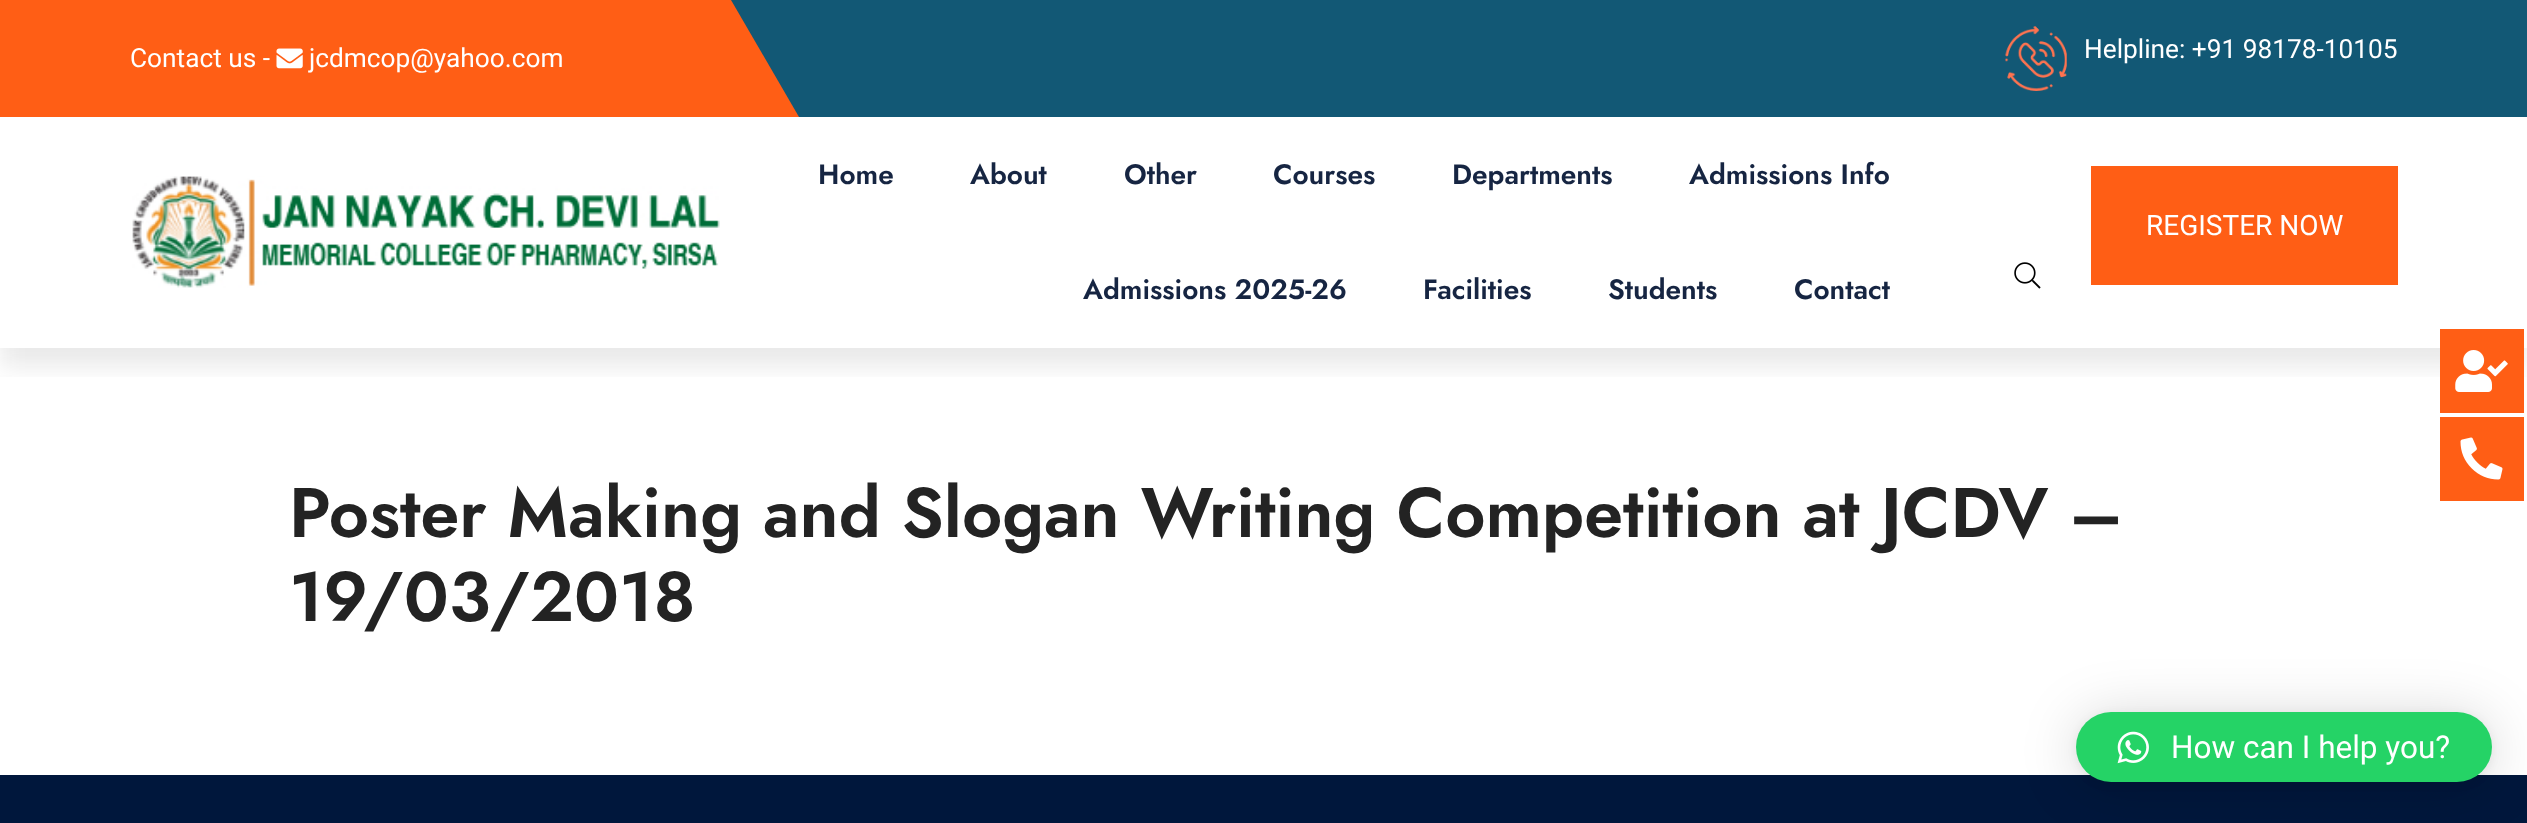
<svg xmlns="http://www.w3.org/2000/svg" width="2527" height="823">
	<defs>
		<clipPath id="clip1"><rect x="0" y="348" width="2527" height="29" /></clipPath>
	</defs>
	<rect width="100%" height="100%" fill="#FFFFFF" />
	<rect x="731" y="0" width="1796" height="117" fill="#125875" />
	<path d="M-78 0H731L799 117H-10Z" fill="#FF5E15" />
	<text x="130" y="67" font-family="Roboto" font-size="26.25" fill="#FFFFFF">Contact us -</text>
	<image x="276" y="48" width="27" height="21" href="assets/img1.png" />
	<text x="309" y="67" font-family="Roboto" font-size="26.25" fill="#FFFFFF">jcdmcop@yahoo.com</text>
	<image x="2005" y="26" width="62" height="65" href="assets/img2.png" />
	<text x="2084" y="58" font-family="Roboto" font-size="26.25" fill="#FFFFFF">Helpline: +91 98178-10105</text>
	<g clip-path="url(#clip1)">
		<rect x="0" y="135" width="2527" height="231" fill="#191919" fill-opacity="0.1" filter="blur(13px)" />
	</g>
	<image x="132" y="176" width="588" height="112" href="assets/img3.png" />
	<g font-family="Jost" font-size="28" font-weight="600" fill="#162542">
		<text x="818" y="184">Home</text>
		<text x="970" y="184">About</text>
		<text x="1124" y="184">Other</text>
		<text x="1273" y="184">Courses</text>
		<text x="1452" y="184">Departments</text>
		<text x="1689" y="184">Admissions Info</text>
		<text x="1083" y="299">Admissions 2025-26</text>
		<text x="1423" y="299">Facilities</text>
		<text x="1608" y="299">Students</text>
		<text x="1794" y="299">Contact</text>
	</g>
	<rect x="2091" y="166" width="307" height="119" fill="#FF5E15" />
	<text x="2146" y="235" font-family="Roboto" font-size="28" fill="#FFFFFF">REGISTER NOW</text>
	<image x="2014" y="262" width="27" height="27" href="assets/img4.png" />
	<rect x="2440" y="329" width="84" height="84" fill="#FF5E15" />
	<image x="2455" y="350" width="53" height="42" href="assets/img5.png" />
	<rect x="2440" y="417" width="84" height="84" fill="#FF5E15" />
	<image x="2460" y="437" width="43" height="43" href="assets/img6.png" />
	<g font-family="Jost" font-size="70" font-weight="600" fill="#232323">
		<text x="289" y="537">Poster Making and Slogan Writing Competition at JCDV –</text>
		<text x="289" y="621">19/03/2018</text>
	</g>
	<rect x="0" y="775" width="2527" height="48" fill="#00173C" />
	<rect x="2076" y="716" width="416" height="70" rx="35" fill="#000000" fill-opacity="0.16" filter="blur(28px)" />
	<rect x="2076" y="714" width="416" height="70" rx="35" fill="#000000" fill-opacity="0.06" filter="blur(5px)" />
	<rect x="2076" y="712" width="416" height="70" rx="35" fill="#25D366" />
	<image x="2117" y="731" width="32" height="33" href="assets/img7.png" />
	<text x="2171" y="758" font-family="Roboto" font-size="31.5" fill="#FFFFFF">How can I help you?</text>
</svg>
